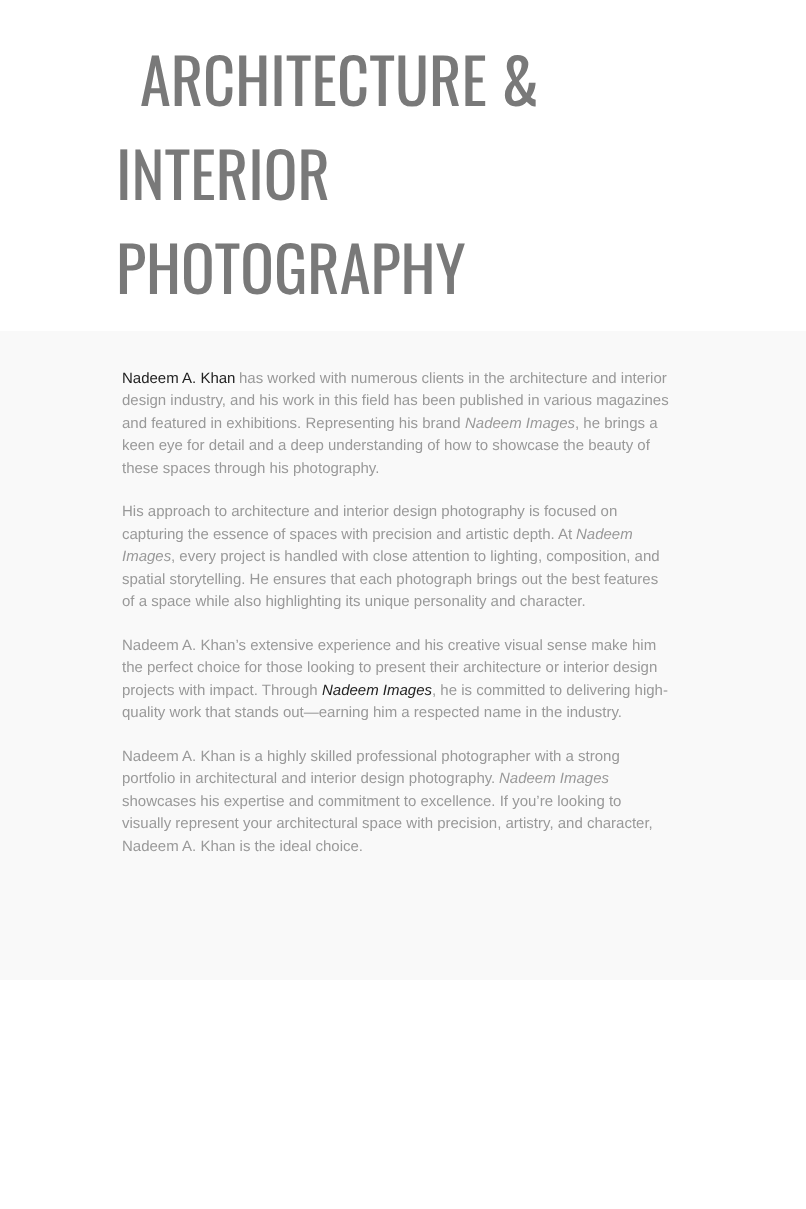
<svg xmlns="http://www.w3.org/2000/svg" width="806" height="1209">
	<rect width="100%" height="100%" fill="#FFFFFF" />
	<g font-family="Oswald" font-size="62.5" fill="#797979">
		<text x="140" y="106">ARCHITECTURE &amp;</text>
		<text x="116" y="200">INTERIOR</text>
		<text x="116" y="294">PHOTOGRAPHY</text>
	</g>
	<rect x="0" y="331" width="806" height="649" fill="#F9F9F9" />
	<text x="122" y="383" font-family="Liberation Sans" font-size="15" fill="#222222">Nadeem A. Khan</text>
	<g font-family="Liberation Sans" font-size="15" fill="#999999">
		<text x="239" y="383">has worked with numerous clients in the architecture and interior</text>
		<text x="122" y="405">design industry, and his work in this field has been published in various magazines</text>
		<text x="122" y="428">and featured in exhibitions. Representing his brand</text>
	</g>
	<text x="465" y="428" font-family="Liberation Sans" font-size="15" font-style="italic" fill="#999999">Nadeem Images</text>
	<g font-family="Liberation Sans" font-size="15" fill="#999999">
		<text x="575" y="428">, he brings a</text>
		<text x="122" y="450">keen eye for detail and a deep understanding of how to showcase the beauty of</text>
		<text x="122" y="473">these spaces through his photography.</text>
		<text x="122" y="516">His approach to architecture and interior design photography is focused on</text>
		<text x="122" y="539">capturing the essence of spaces with precision and artistic depth. At</text>
	</g>
	<g font-family="Liberation Sans" font-size="15" font-style="italic" fill="#999999">
		<text x="576" y="539">Nadeem</text>
		<text x="122" y="561">Images</text>
	</g>
	<g font-family="Liberation Sans" font-size="15" fill="#999999">
		<text x="171" y="561">, every project is handled with close attention to lighting, composition, and</text>
		<text x="122" y="584">spatial storytelling. He ensures that each photograph brings out the best features</text>
		<text x="122" y="606">of a space while also highlighting its unique personality and character.</text>
		<text x="122" y="650">Nadeem A. Khan’s extensive experience and his creative visual sense make him</text>
		<text x="122" y="672">the perfect choice for those looking to present their architecture or interior design</text>
		<text x="122" y="695">projects with impact. Through</text>
	</g>
	<text x="322" y="695" font-family="Liberation Sans" font-size="15" font-style="italic" fill="#222222">Nadeem Images</text>
	<g font-family="Liberation Sans" font-size="15" fill="#999999">
		<text x="432" y="695">, he is committed to delivering high-</text>
		<text x="122" y="717">quality work that stands out—earning him a respected name in the industry.</text>
		<text x="122" y="761">Nadeem A. Khan is a highly skilled professional photographer with a strong</text>
		<text x="122" y="783">portfolio in architectural and interior design photography.</text>
	</g>
	<text x="499" y="783" font-family="Liberation Sans" font-size="15" font-style="italic" fill="#999999">Nadeem Images</text>
	<g font-family="Liberation Sans" font-size="15" fill="#999999">
		<text x="122" y="806">showcases his expertise and commitment to excellence. If you’re looking to</text>
		<text x="122" y="828">visually represent your architectural space with precision, artistry, and character,</text>
		<text x="122" y="851">Nadeem A. Khan is the ideal choice.</text>
	</g>
</svg>
